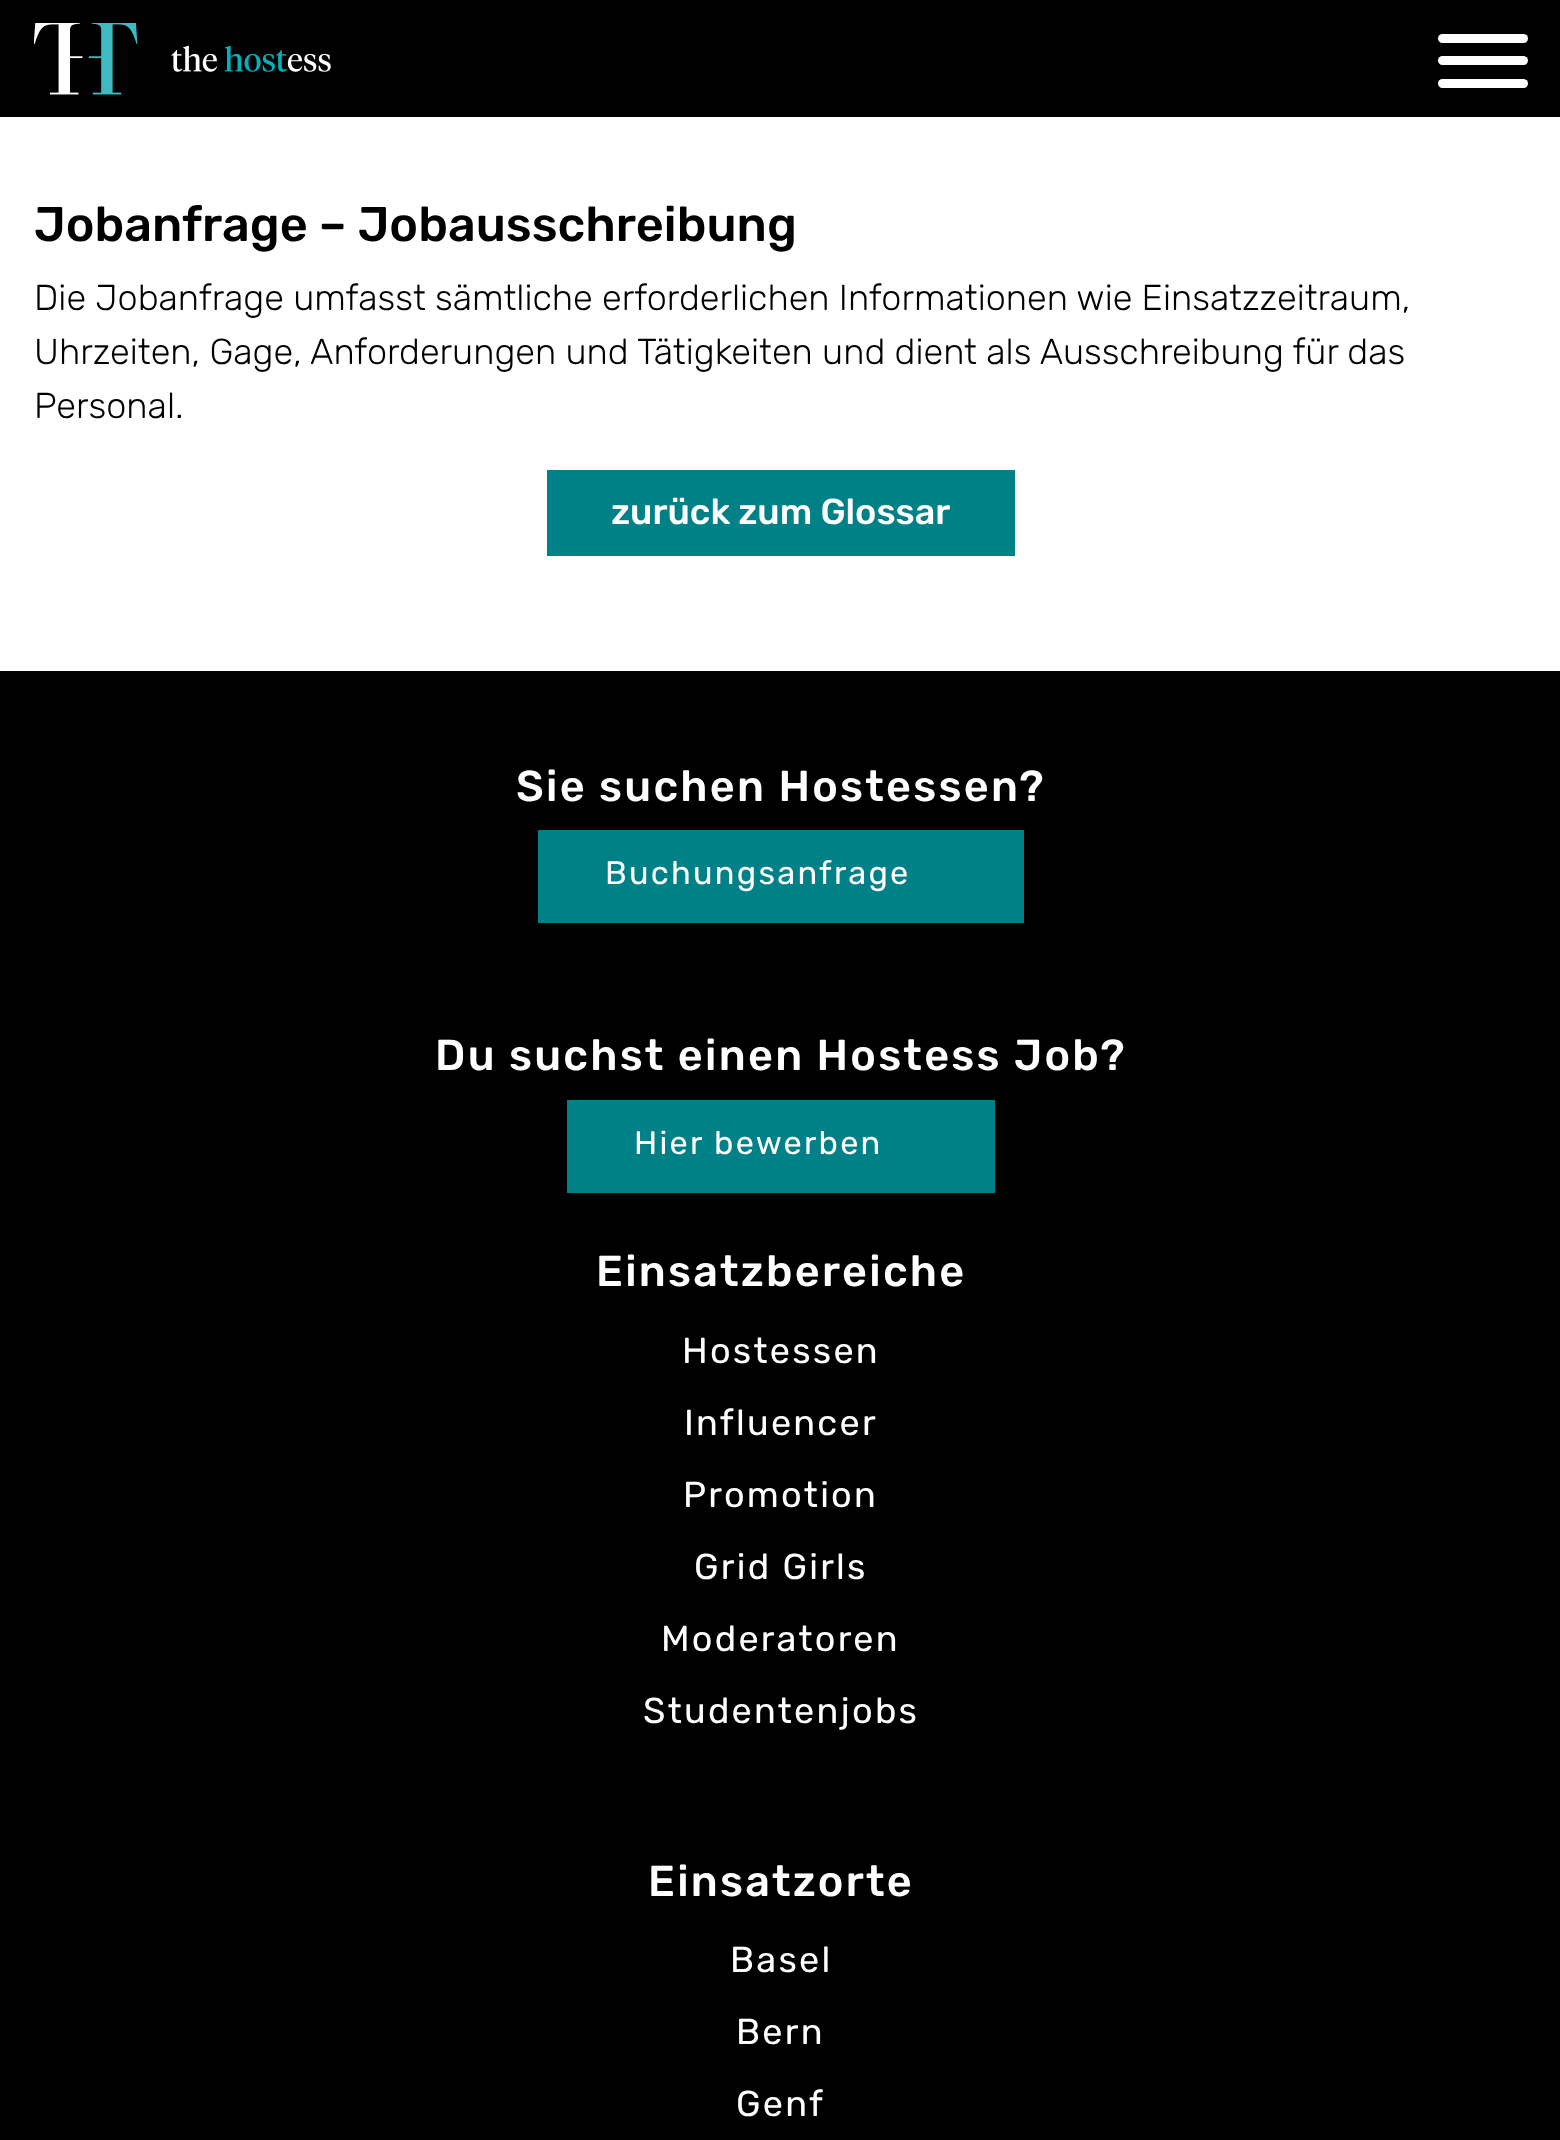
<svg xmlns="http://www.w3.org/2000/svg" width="1560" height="2140">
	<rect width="100%" height="100%" fill="#FFFFFF" />
	<rect x="0" y="0" width="1560" height="117" fill="#000000" />
	<image x="34" y="23" width="297" height="72" href="assets/img1.png" />
	<rect x="1438" y="56" width="90" height="9" rx="4.5" fill="#FFFFFF" />
	<rect x="1438" y="34" width="90" height="9" rx="4.5" fill="#FFFFFF" />
	<rect x="1438" y="79" width="90" height="9" rx="4.5" fill="#FFFFFF" />
	<text x="34" y="241" font-family="Rubik" font-size="48.6" font-weight="500" fill="#000000">Jobanfrage – Jobausschreibung</text>
	<g font-family="Rubik" font-size="36" font-weight="300" fill="#000000">
		<text x="34" y="310">Die Jobanfrage umfasst sämtliche erforderlichen Informationen wie Einsatzzeitraum,</text>
		<text x="34" y="364">Uhrzeiten, Gage, Anforderungen und Tätigkeiten und dient als Ausschreibung für das</text>
		<text x="34" y="418">Personal.</text>
	</g>
	<rect x="547" y="470" width="468" height="86" fill="#008188" />
	<text x="611" y="524" font-family="Rubik" font-size="36" font-weight="500" fill="#FFFFFF">zurück zum Glossar</text>
	<rect x="0" y="671" width="1560" height="1469" fill="#000000" />
	<text x="516" y="801" font-family="Rubik" font-size="43.25" font-weight="500" letter-spacing="2.25" fill="#FFFFFF">Sie suchen Hostessen?</text>
	<rect x="538" y="830" width="486" height="93" fill="#008188" />
	<text x="605" y="884" font-family="Rubik" font-size="32.5" letter-spacing="2.25" fill="#FFFFFF">Buchungsanfrage</text>
	<text x="435" y="1070" font-family="Rubik" font-size="43.25" font-weight="500" letter-spacing="2.25" fill="#FFFFFF">Du suchst einen Hostess Job?</text>
	<rect x="567" y="1100" width="428" height="93" fill="#008188" />
	<text x="634" y="1154" font-family="Rubik" font-size="32.5" letter-spacing="2.25" fill="#FFFFFF">Hier bewerben</text>
	<text x="596" y="1286" font-family="Rubik" font-size="43.25" font-weight="500" letter-spacing="2.25" fill="#FFFFFF">Einsatzbereiche</text>
	<g font-family="Rubik" font-size="36" letter-spacing="2.25" fill="#FFFFFF">
		<text x="682" y="1363">Hostessen</text>
		<text x="684" y="1435">Influencer</text>
		<text x="683" y="1507">Promotion</text>
		<text x="694" y="1579">Grid Girls</text>
		<text x="661" y="1651">Moderatoren</text>
		<text x="643" y="1723">Studentenjobs</text>
	</g>
	<text x="648" y="1896" font-family="Rubik" font-size="43.25" font-weight="500" letter-spacing="2.25" fill="#FFFFFF">Einsatzorte</text>
	<g font-family="Rubik" font-size="36" letter-spacing="2.25" fill="#FFFFFF">
		<text x="730" y="1972">Basel</text>
		<text x="736" y="2044">Bern</text>
		<text x="736" y="2116">Genf</text>
	</g>
</svg>
